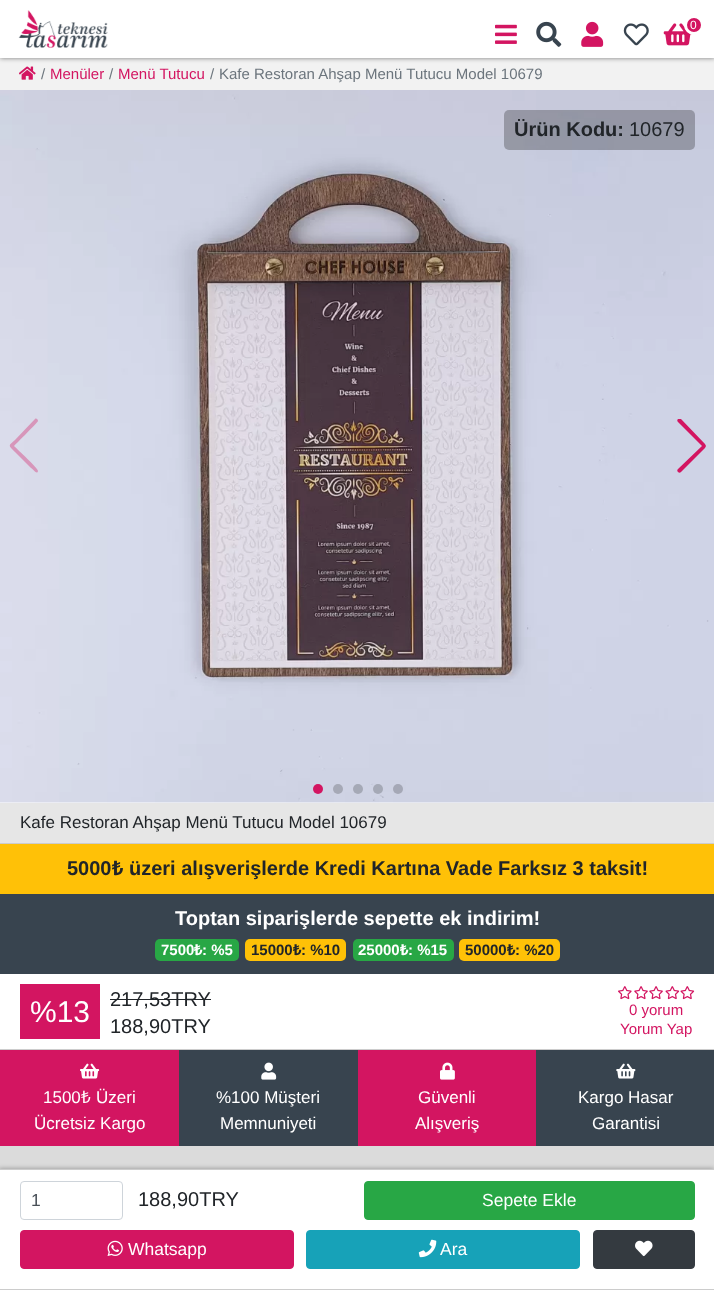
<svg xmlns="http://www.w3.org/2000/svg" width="714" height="1290">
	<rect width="100%" height="100%" fill="#FFFFFF" />
	<rect x="0" y="58" width="714" height="32" fill="#F2F2F2" />
	<image x="19" y="66" width="17" height="14" href="assets/img7.png" />
	<rect x="0" y="0" width="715" height="58" fill="#000000" fill-opacity="0.5" filter="blur(2.5px)" />
	<rect x="0" y="0" width="714" height="58" fill="#FFFFFF" />
	<image x="18" y="10" width="90" height="38" href="assets/img1.png" />
	<image x="495" y="24" width="22" height="20" href="assets/img2.png" />
	<image x="536" y="21" width="26" height="26" href="assets/img3.png" />
	<image x="581" y="21" width="23" height="26" href="assets/img4.png" />
	<image x="623" y="23" width="26" height="23" href="assets/img5.png" />
	<image x="663" y="23" width="29" height="23" href="assets/img6.png" />
	<circle cx="694" cy="25" r="8.5" fill="#D31561" stroke="#FFFFFF" stroke-width="3" />
	<text x="690" y="29" font-family="Liberation Sans" font-size="12" fill="#FFFFFF">0</text>
	<text x="41" y="79" font-family="Liberation Sans" font-size="15" fill="#6C757D">/</text>
	<text x="50" y="79" font-family="Liberation Sans" font-size="15" fill="#D31561">Menüler</text>
	<text x="109" y="79" font-family="Liberation Sans" font-size="15" fill="#6C757D">/</text>
	<text x="118" y="79" font-family="Liberation Sans" font-size="15" fill="#D31561">Menü Tutucu</text>
	<g font-family="Liberation Sans" font-size="15" fill="#6C757D">
		<text x="210" y="79">/</text>
		<text x="219" y="79">Kafe Restoran Ahşap Menü Tutucu Model 10679</text>
	</g>
	<image x="0" y="90" width="714" height="713" href="assets/img8.png" />
	<path d="M35 419C36 418 38 419 38 421C38 422 17 443 14 446C17 449 39 469 38 471C37 475 34 470 31 468L15 452C8 445 8 446 15 440Z" fill="#D796BA" />
	<path d="M678 472C677 471 677 470 678 469L702 446L678 422C677 421 677 420 678 419C679 419 680 419 681 419L705 444L706 446L705 448L681 472C680 473 679 473 678 472Z" fill="#D31561" />
	<circle cx="318" cy="789" r="5" fill="#D31561" />
	<circle cx="338" cy="789" r="5" fill="#A6A9B6" />
	<circle cx="358" cy="789" r="5" fill="#A5A9B6" />
	<circle cx="378" cy="789" r="5" fill="#A5A9B6" />
	<circle cx="398" cy="789" r="5" fill="#A5A8B6" />
	<rect x="504" y="110" width="191" height="40" rx="5" fill="#000000" fill-opacity="0.25" />
	<text x="514" y="136" font-family="Liberation Sans" font-size="20" font-weight="700" fill="#212529">Ürün Kodu:</text>
	<text x="629" y="136" font-family="Liberation Sans" font-size="20" fill="#212529">10679</text>
	<rect x="0" y="803" width="714" height="40" fill="#E6E6E6" />
	<rect x="0" y="843" width="714" height="1" fill="#CCCCCC" />
	<text x="20" y="828" font-family="Liberation Sans" font-size="17" fill="#212529">Kafe Restoran Ahşap Menü Tutucu Model 10679</text>
	<rect x="0" y="844" width="714" height="50" fill="#FFC107" />
	<text x="67" y="875" font-family="Liberation Sans" font-size="20" font-weight="700" fill="#212529">5000</text>
	<text x="112" y="875" font-family="Noto Sans" font-size="20" font-weight="700" fill="#212529">₺</text>
	<text x="129" y="875" font-family="Liberation Sans" font-size="20" font-weight="700" fill="#212529">üzeri alışverişlerde Kredi Kartına Vade Farksız 3 taksit!</text>
	<rect x="0" y="894" width="714" height="80" fill="#38444F" />
	<text x="175" y="925" font-family="Liberation Sans" font-size="20" font-weight="700" fill="#FFFFFF">Toptan siparişlerde sepette ek indirim!</text>
	<rect x="155" y="939" width="84" height="22" rx="5" fill="#28A745" />
	<text x="161" y="955" font-family="Liberation Sans" font-size="15" font-weight="700" fill="#FFFFFF">7500</text>
	<text x="194" y="955" font-family="Noto Sans" font-size="15" font-weight="700" fill="#FFFFFF">₺</text>
	<text x="202" y="955" font-family="Liberation Sans" font-size="15" font-weight="700" fill="#FFFFFF">: %5</text>
	<rect x="245" y="939" width="101" height="22" rx="5" fill="#FFC107" />
	<text x="251" y="955" font-family="Liberation Sans" font-size="15" font-weight="700" fill="#212529">15000</text>
	<text x="293" y="955" font-family="Noto Sans" font-size="15" font-weight="700" fill="#212529">₺</text>
	<text x="301" y="955" font-family="Liberation Sans" font-size="15" font-weight="700" fill="#212529">: %10</text>
	<rect x="353" y="939" width="101" height="22" rx="5" fill="#28A745" />
	<text x="358" y="955" font-family="Liberation Sans" font-size="15" font-weight="700" fill="#FFFFFF">25000</text>
	<text x="400" y="955" font-family="Noto Sans" font-size="15" font-weight="700" fill="#FFFFFF">₺</text>
	<text x="408" y="955" font-family="Liberation Sans" font-size="15" font-weight="700" fill="#FFFFFF">: %15</text>
	<rect x="459" y="939" width="101" height="22" rx="5" fill="#FFC107" />
	<text x="465" y="955" font-family="Liberation Sans" font-size="15" font-weight="700" fill="#212529">50000</text>
	<text x="507" y="955" font-family="Noto Sans" font-size="15" font-weight="700" fill="#212529">₺</text>
	<text x="515" y="955" font-family="Liberation Sans" font-size="15" font-weight="700" fill="#212529">: %20</text>
	<rect x="0" y="1049" width="714" height="1" fill="#CCCCCC" />
	<rect x="20" y="984" width="80" height="55" fill="#D31561" />
	<text x="30" y="1022" font-family="Liberation Sans" font-size="30" fill="#FFFFFF">%13</text>
	<text x="110" y="1006" font-family="Liberation Sans" font-size="20" fill="#212529">217,53TRY</text>
	<rect x="110" y="999" width="101" height="1" fill="#212529" />
	<text x="110" y="1033" font-family="Liberation Sans" font-size="20" fill="#212529">188,90TRY</text>
	<image x="618" y="986" width="14" height="14" href="assets/img9.png" />
	<image x="634" y="986" width="14" height="14" href="assets/img10.png" />
	<image x="649" y="986" width="14" height="14" href="assets/img10.png" />
	<image x="665" y="986" width="15" height="14" href="assets/img11.png" />
	<image x="680" y="986" width="15" height="14" href="assets/img11.png" />
	<g font-family="Liberation Sans" font-size="15" fill="#D31561">
		<text x="629" y="1015">0 yorum</text>
		<text x="620" y="1034">Yorum Yap</text>
	</g>
	<rect x="0" y="1050" width="179" height="96" fill="#D31561" />
	<image x="80" y="1063" width="20" height="16" href="assets/img12.png" />
	<text x="43" y="1103" font-family="Liberation Sans" font-size="17" fill="#FFFFFF">1500</text>
	<text x="81" y="1103" font-family="Noto Sans" font-size="17" fill="#FFFFFF">₺</text>
	<g font-family="Liberation Sans" font-size="17" fill="#FFFFFF">
		<text x="96" y="1103">Üzeri</text>
		<text x="34" y="1129">Ücretsiz Kargo</text>
	</g>
	<rect x="179" y="1050" width="179" height="96" fill="#38444F" />
	<image x="261" y="1062" width="16" height="18" href="assets/img13.png" />
	<g font-family="Liberation Sans" font-size="17" fill="#FFFFFF">
		<text x="216" y="1103">%100 Müşteri</text>
		<text x="220" y="1129">Memnuniyeti</text>
	</g>
	<rect x="358" y="1050" width="178" height="96" fill="#D31561" />
	<image x="440" y="1062" width="15" height="18" href="assets/img14.png" />
	<g font-family="Liberation Sans" font-size="17" fill="#FFFFFF">
		<text x="418" y="1103">Güvenli</text>
		<text x="415" y="1129">Alışveriş</text>
	</g>
	<rect x="536" y="1050" width="178" height="96" fill="#38444F" />
	<image x="616" y="1063" width="20" height="16" href="assets/img15.png" />
	<g font-family="Liberation Sans" font-size="17" fill="#FFFFFF">
		<text x="578" y="1103">Kargo Hasar</text>
		<text x="592" y="1129">Garantisi</text>
	</g>
	<rect x="0" y="1146" width="714" height="23" fill="#DBDBDB" />
	<rect x="-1" y="1168" width="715" height="121" fill="#000000" fill-opacity="0.25" filter="blur(2px)" />
	<rect x="0" y="1170" width="714" height="119" fill="#FFFFFF" />
	<rect x="0" y="1169" width="714" height="1" fill="#CCCCCC" />
	<rect x="0" y="1289" width="714" height="1" fill="#CCCCCC" />
	<rect x="20.5" y="1181.5" width="102" height="38" rx="3.5" fill="none" stroke="#CED4DA" />
	<text x="31" y="1206" font-family="Liberation Sans" font-size="17.5" fill="#495057">1</text>
	<text x="138" y="1206" font-family="Liberation Sans" font-size="20" fill="#212529">188,90TRY</text>
	<rect x="364.5" y="1181.5" width="330" height="38" rx="3.5" fill="#28A745" stroke="#28A745" />
	<text x="482" y="1206" font-family="Liberation Sans" font-size="17.5" fill="#FFFFFF">Sepete Ekle</text>
	<rect x="20.5" y="1230.5" width="273" height="38" rx="3.5" fill="#D31561" stroke="#D31561" />
	<image x="107" y="1240" width="16" height="16" href="assets/img16.png" />
	<text x="128" y="1255" font-family="Liberation Sans" font-size="17.5" fill="#FFFFFF">Whatsapp</text>
	<rect x="306.5" y="1230.5" width="273" height="38" rx="3.5" fill="#17A2B8" stroke="#17A2B8" />
	<image x="418" y="1239" width="19" height="19" href="assets/img17.png" />
	<text x="440" y="1255" font-family="Liberation Sans" font-size="17.5" fill="#FFFFFF">Ara</text>
	<rect x="593.5" y="1230.5" width="101" height="38" rx="3.5" fill="#343A40" stroke="#343A40" />
	<image x="635" y="1240" width="18" height="17" href="assets/img18.png" />
</svg>
